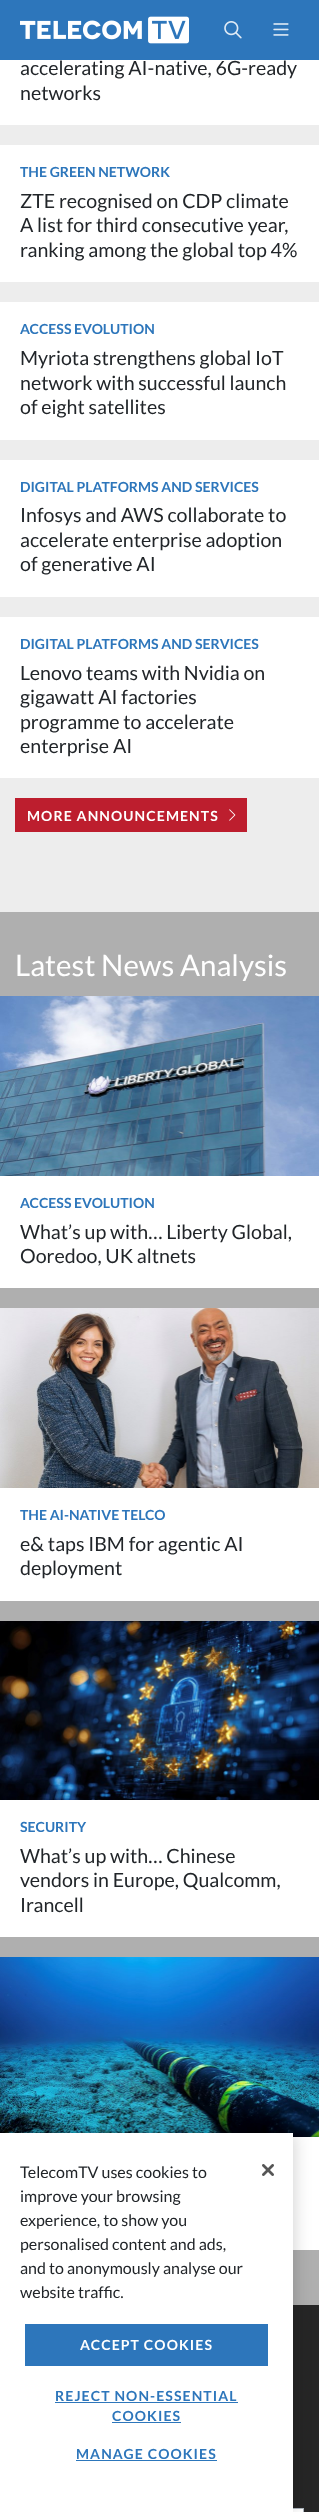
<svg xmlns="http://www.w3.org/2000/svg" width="319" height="2512">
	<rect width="100%" height="100%" fill="#EDEDED" />
	<rect x="0" y="0" width="319" height="60" fill="#2D76BB" />
	<image x="20" y="16" width="169" height="28" href="assets/img1.png" />
	<image x="224" y="21" width="18" height="18" href="assets/img2.png" />
	<image x="273" y="23" width="16" height="13" href="assets/img3.png" />
	<rect x="0" y="60" width="319" height="65" fill="#FFFFFF" />
	<g font-family="Lato" font-size="19.6" fill="#212529">
		<text x="20" y="75">accelerating AI-native, 6G-ready</text>
		<text x="20" y="100">networks</text>
	</g>
	<rect x="0" y="145" width="319" height="137" fill="#FFFFFF" />
	<text x="20" y="177" font-family="Lato" font-size="14" font-weight="700" fill="#2D76BB">THE GREEN NETWORK</text>
	<g font-family="Lato" font-size="19.6" fill="#212529">
		<text x="20" y="208">ZTE recognised on CDP climate</text>
		<text x="20" y="232">A list for third consecutive year,</text>
		<text x="20" y="257">ranking among the global top 4%</text>
	</g>
	<rect x="0" y="302" width="319" height="138" fill="#FFFFFF" />
	<text x="20" y="334" font-family="Lato" font-size="14" font-weight="700" fill="#2D76BB">ACCESS EVOLUTION</text>
	<g font-family="Lato" font-size="19.6" fill="#212529">
		<text x="20" y="365">Myriota strengthens global IoT</text>
		<text x="20" y="390">network with successful launch</text>
		<text x="20" y="414">of eight satellites</text>
	</g>
	<rect x="0" y="460" width="319" height="137" fill="#FFFFFF" />
	<text x="20" y="492" font-family="Lato" font-size="14" font-weight="700" fill="#2D76BB">DIGITAL PLATFORMS AND SERVICES</text>
	<g font-family="Lato" font-size="19.6" fill="#212529">
		<text x="20" y="522">Infosys and AWS collaborate to</text>
		<text x="20" y="547">accelerate enterprise adoption</text>
		<text x="20" y="571">of generative AI</text>
	</g>
	<rect x="0" y="617" width="319" height="161" fill="#FFFFFF" />
	<text x="20" y="649" font-family="Lato" font-size="14" font-weight="700" fill="#2D76BB">DIGITAL PLATFORMS AND SERVICES</text>
	<g font-family="Lato" font-size="19.6" fill="#212529">
		<text x="20" y="680">Lenovo teams with Nvidia on</text>
		<text x="20" y="704">gigawatt AI factories</text>
		<text x="20" y="729">programme to accelerate</text>
		<text x="20" y="753">enterprise AI</text>
	</g>
	<rect x="15" y="798" width="232" height="34" fill="#BD1E2E" />
	<text x="27" y="821" font-family="Lato" font-size="14" font-weight="700" letter-spacing="1.1" fill="#FFFFFF">MORE ANNOUNCEMENTS</text>
	<image x="229" y="809" width="7" height="12" href="assets/img4.png" />
	<rect x="0" y="912" width="319" height="1393" fill="#AFAFAF" />
	<text x="15" y="976" font-family="Lato" font-size="29.5" fill="#FFFFFF">Latest News Analysis</text>
	<rect x="0" y="1176" width="319" height="112" fill="#FFFFFF" />
	<image x="0" y="996" width="319" height="180" href="assets/img5.png" />
	<text x="20" y="1208" font-family="Lato" font-size="14" font-weight="700" fill="#2D76BB">ACCESS EVOLUTION</text>
	<g font-family="Lato" font-size="19.6" fill="#212529">
		<text x="20" y="1239">What’s up with… Liberty Global,</text>
		<text x="20" y="1263">Ooredoo, UK altnets</text>
	</g>
	<rect x="0" y="1488" width="319" height="113" fill="#FFFFFF" />
	<image x="0" y="1308" width="319" height="180" href="assets/img6.png" />
	<text x="20" y="1520" font-family="Lato" font-size="14" font-weight="700" fill="#2D76BB">THE AI-NATIVE TELCO</text>
	<g font-family="Lato" font-size="19.6" fill="#212529">
		<text x="20" y="1551">e&amp; taps IBM for agentic AI</text>
		<text x="20" y="1575">deployment</text>
	</g>
	<rect x="0" y="1800" width="319" height="137" fill="#FFFFFF" />
	<image x="0" y="1621" width="319" height="179" href="assets/img7.png" />
	<text x="20" y="1832" font-family="Lato" font-size="14" font-weight="700" fill="#2D76BB">SECURITY</text>
	<g font-family="Lato" font-size="19.6" fill="#212529">
		<text x="20" y="1863">What’s up with… Chinese</text>
		<text x="20" y="1887">vendors in Europe, Qualcomm,</text>
		<text x="20" y="1912">Irancell</text>
	</g>
	<rect x="293" y="2137" width="26" height="113" fill="#FFFFFF" />
	<image x="0" y="1957" width="319" height="180" href="assets/img8.png" />
	<rect x="293" y="2305" width="26" height="207" fill="#262626" />
	<rect x="293" y="2509" width="11" height="3" fill="#FFFFFF" />
	<rect x="15.5" y="2508.5" width="288" height="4" fill="none" stroke="#ADB5BD" />
	<rect x="0" y="2133" width="293" height="379" fill="#000000" fill-opacity="0.2" filter="blur(9px)" />
	<rect x="0" y="2133" width="293" height="379" fill="#FFFFFF" />
	<g font-family="Lato" font-size="16" fill="#212529">
		<text x="20" y="2178">TelecomTV uses cookies to</text>
		<text x="20" y="2202">improve your browsing</text>
		<text x="20" y="2226">experience, to show you</text>
		<text x="20" y="2250">personalised content and ads,</text>
		<text x="20" y="2274">and to anonymously analyse our</text>
		<text x="20" y="2298">website traffic.</text>
	</g>
	<image x="262" y="2164" width="12" height="12" href="assets/img9.png" />
	<rect x="25" y="2324" width="243" height="42" fill="#2D76BB" />
	<text x="80" y="2350" font-family="Lato" font-size="14" font-weight="700" letter-spacing="1.1" fill="#FFFFFF">ACCEPT COOKIES</text>
	<text x="55" y="2401" font-family="Lato" font-size="14" font-weight="700" letter-spacing="1.1" fill="#2D76BB">REJECT NON-ESSENTIAL</text>
	<rect x="55" y="2402" width="183" height="1" fill="#2D76BB" />
	<text x="112" y="2421" font-family="Lato" font-size="14" font-weight="700" letter-spacing="1.1" fill="#2D76BB">COOKIES</text>
	<rect x="112" y="2422" width="69" height="1" fill="#2D76BB" />
	<text x="76" y="2459" font-family="Lato" font-size="14" font-weight="700" letter-spacing="1.1" fill="#2D76BB">MANAGE COOKIES</text>
	<rect x="76" y="2460" width="141" height="1" fill="#2D76BB" />
</svg>
